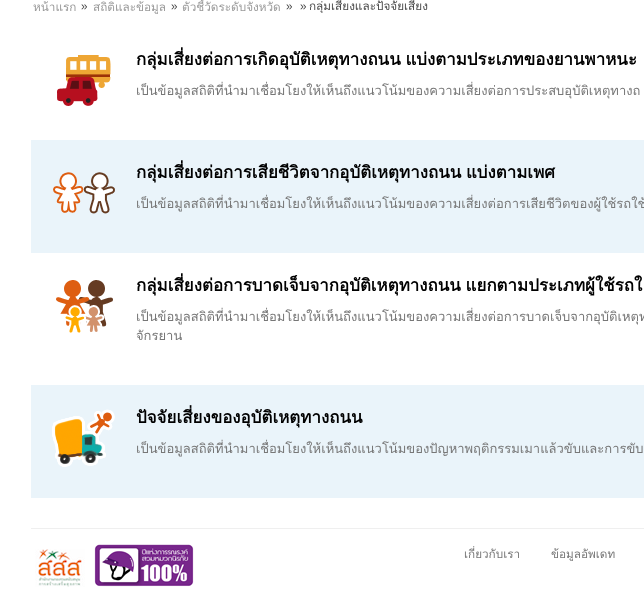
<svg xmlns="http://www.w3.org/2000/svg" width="644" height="613">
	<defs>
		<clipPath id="clip1"><rect x="136" y="47" width="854" height="73" /></clipPath>
		<clipPath id="clip2"><rect x="136" y="160" width="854" height="73" /></clipPath>
		<clipPath id="clip3"><rect x="136" y="273" width="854" height="92" /></clipPath>
		<clipPath id="clip4"><rect x="136" y="405" width="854" height="73" /></clipPath>
	</defs>
	<rect width="100%" height="100%" fill="#FFFFFF" />
	<text x="33" y="11" font-family="Loma" font-size="11.75" fill="#999999">หน้าแรก</text>
	<text x="81" y="10" font-family="Liberation Sans" font-size="11.75" fill="#484848">»</text>
	<text x="93" y="11" font-family="Loma" font-size="11.75" fill="#999999">สถิติและข้อมูล</text>
	<text x="171" y="10" font-family="Liberation Sans" font-size="11.75" fill="#484848">»</text>
	<text x="182" y="11" font-family="Loma" font-size="11.75" fill="#999999">ตัวชี้วัดระดับจังหวัด</text>
	<g font-family="Liberation Sans" font-size="11.75" fill="#484848">
		<text x="286" y="10">»</text>
		<text x="300" y="10">»</text>
	</g>
	<text x="309" y="10" font-family="Loma" font-size="11.75" fill="#484848">กลุ่มเสี่ยงและปัจจัยเสี่ยง</text>
	<image x="57" y="55" width="54" height="51" href="assets/img1.png" />
	<text x="136" y="65" word-spacing="-1" font-family="Loma" font-size="16.9" font-weight="700" fill="#000000">กลุ่มเสี่ยงต่อการเกิดอุบัติเหตุทางถนน แบ่งตามประเภทของยานพาหนะ</text>
	<g clip-path="url(#clip1)">
		<text x="136" y="95" font-family="Loma" font-size="13" fill="#777777">เป็นข้อมูลสถิติที่นำมาเชื่อมโยงให้เห็นถึงแนวโน้มของความเสี่ยงต่อการประสบอุบัติเหตุทางถ</text>
	</g>
	<rect x="31" y="140" width="613" height="113" fill="#EAF4FA" />
	<image x="53" y="172" width="62" height="42" href="assets/img2.png" />
	<text x="136" y="178" word-spacing="-1" font-family="Loma" font-size="16.9" font-weight="700" fill="#000000">กลุ่มเสี่ยงต่อการเสียชีวิตจากอุบัติเหตุทางถนน แบ่งตามเพศ</text>
	<g clip-path="url(#clip2)">
		<text x="136" y="208" word-spacing="-1" font-family="Loma" font-size="13" fill="#777777">เป็นข้อมูลสถิติที่นำมาเชื่อมโยงให้เห็นถึงแนวโน้มของความเสี่ยงต่อการเสียชีวิตของผู้ใช้รถใช้</text>
	</g>
	<image x="56" y="280" width="57" height="53" href="assets/img3.png" />
	<text x="136" y="291" word-spacing="-1" font-family="Loma" font-size="16.9" font-weight="700" fill="#000000">กลุ่มเสี่ยงต่อการบาดเจ็บจากอุบัติเหตุทางถนน แยกตามประเภทผู้ใช้รถใ</text>
	<g clip-path="url(#clip3)">
		<g font-family="Loma" font-size="13" fill="#777777">
			<text x="136" y="321" word-spacing="-1">เป็นข้อมูลสถิติที่นำมาเชื่อมโยงให้เห็นถึงแนวโน้มของความเสี่ยงต่อการบาดเจ็บจากอุบัติเหตุท</text>
			<text x="136" y="340">จักรยาน</text>
		</g>
	</g>
	<rect x="31" y="385" width="613" height="113" fill="#EAF4FA" />
	<image x="52" y="409" width="63" height="58" href="assets/img4.png" />
	<g clip-path="url(#clip4)">
		<text x="136" y="423" font-family="Loma" font-size="16.9" font-weight="700" fill="#000000">ปัจจัยเสี่ยงของอุบัติเหตุทางถนน</text>
		<text x="136" y="453" font-family="Loma" font-size="13" fill="#777777">เป็นข้อมูลสถิติที่นำมาเชื่อมโยงให้เห็นถึงแนวโน้มของปัญหาพฤติกรรมเมาแล้วขับและการขับ</text>
	</g>
	<rect x="31" y="528" width="613" height="1" fill="#EFEFEF" />
	<image x="35" y="549" width="50" height="38" href="assets/img5.png" />
	<image x="94" y="544" width="100" height="43" href="assets/img6.png" />
	<g font-family="Loma" font-size="11.75" fill="#777777">
		<text x="464" y="558">เกี่ยวกับเรา</text>
		<text x="551" y="558">ข้อมูลอัพเดท</text>
	</g>
</svg>
